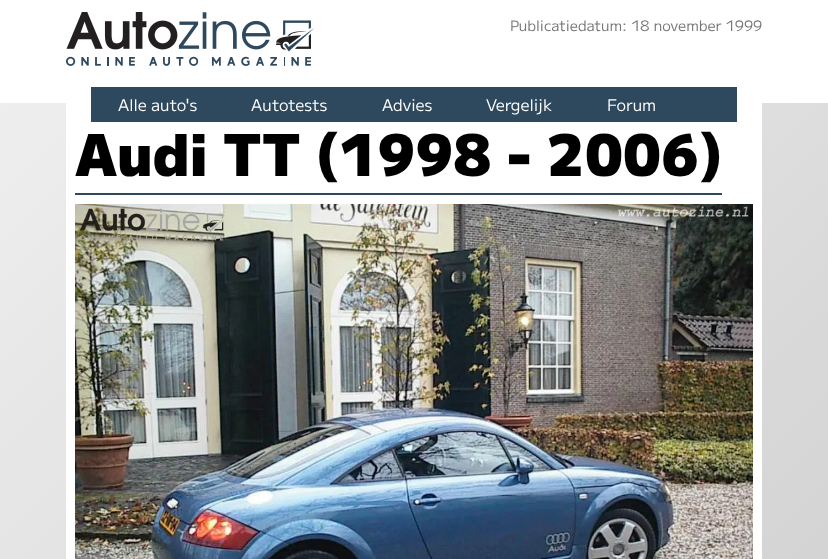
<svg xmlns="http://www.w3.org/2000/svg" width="828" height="559">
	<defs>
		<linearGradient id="g1" gradientUnits="userSpaceOnUse" x1="-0.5" y1="104" x2="828" y2="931"><stop offset="0" stop-color="#EEEEEE" /><stop offset="1" stop-color="#CCCCCC" /></linearGradient>
	</defs>
	<rect width="100%" height="100%" fill="#FFFFFF" />
	<image x="66" y="12" width="248" height="54" href="assets/img1.png" />
	<text x="510" y="31" font-family="'M PLUS 1'" font-size="14.4" fill="#767676">Publicatiedatum: 18 november 1999</text>
	<rect x="0" y="103" width="828" height="456" fill="url(#g1)" />
	<rect x="66" y="103" width="696" height="456" fill="#FFFFFF" />
	<rect x="91" y="87" width="646" height="35" fill="#2E495E" />
	<g font-family="'M PLUS 1'" font-size="16" fill="#FFFFFF">
		<text x="118" y="111">Alle auto's</text>
		<text x="251" y="111">Autotests</text>
		<text x="382" y="111">Advies</text>
		<text x="486" y="111">Vergelijk</text>
		<text x="607" y="111">Forum</text>
	</g>
	<rect x="75" y="193" width="647" height="2" fill="#2E495E" />
	<text x="75" y="176" font-family="'M PLUS 1'" font-size="57.6" font-weight="900" fill="#000000">Audi TT (1998 - 2006)</text>
	<image x="75" y="204" width="678" height="355" href="assets/img2.png" />
</svg>
